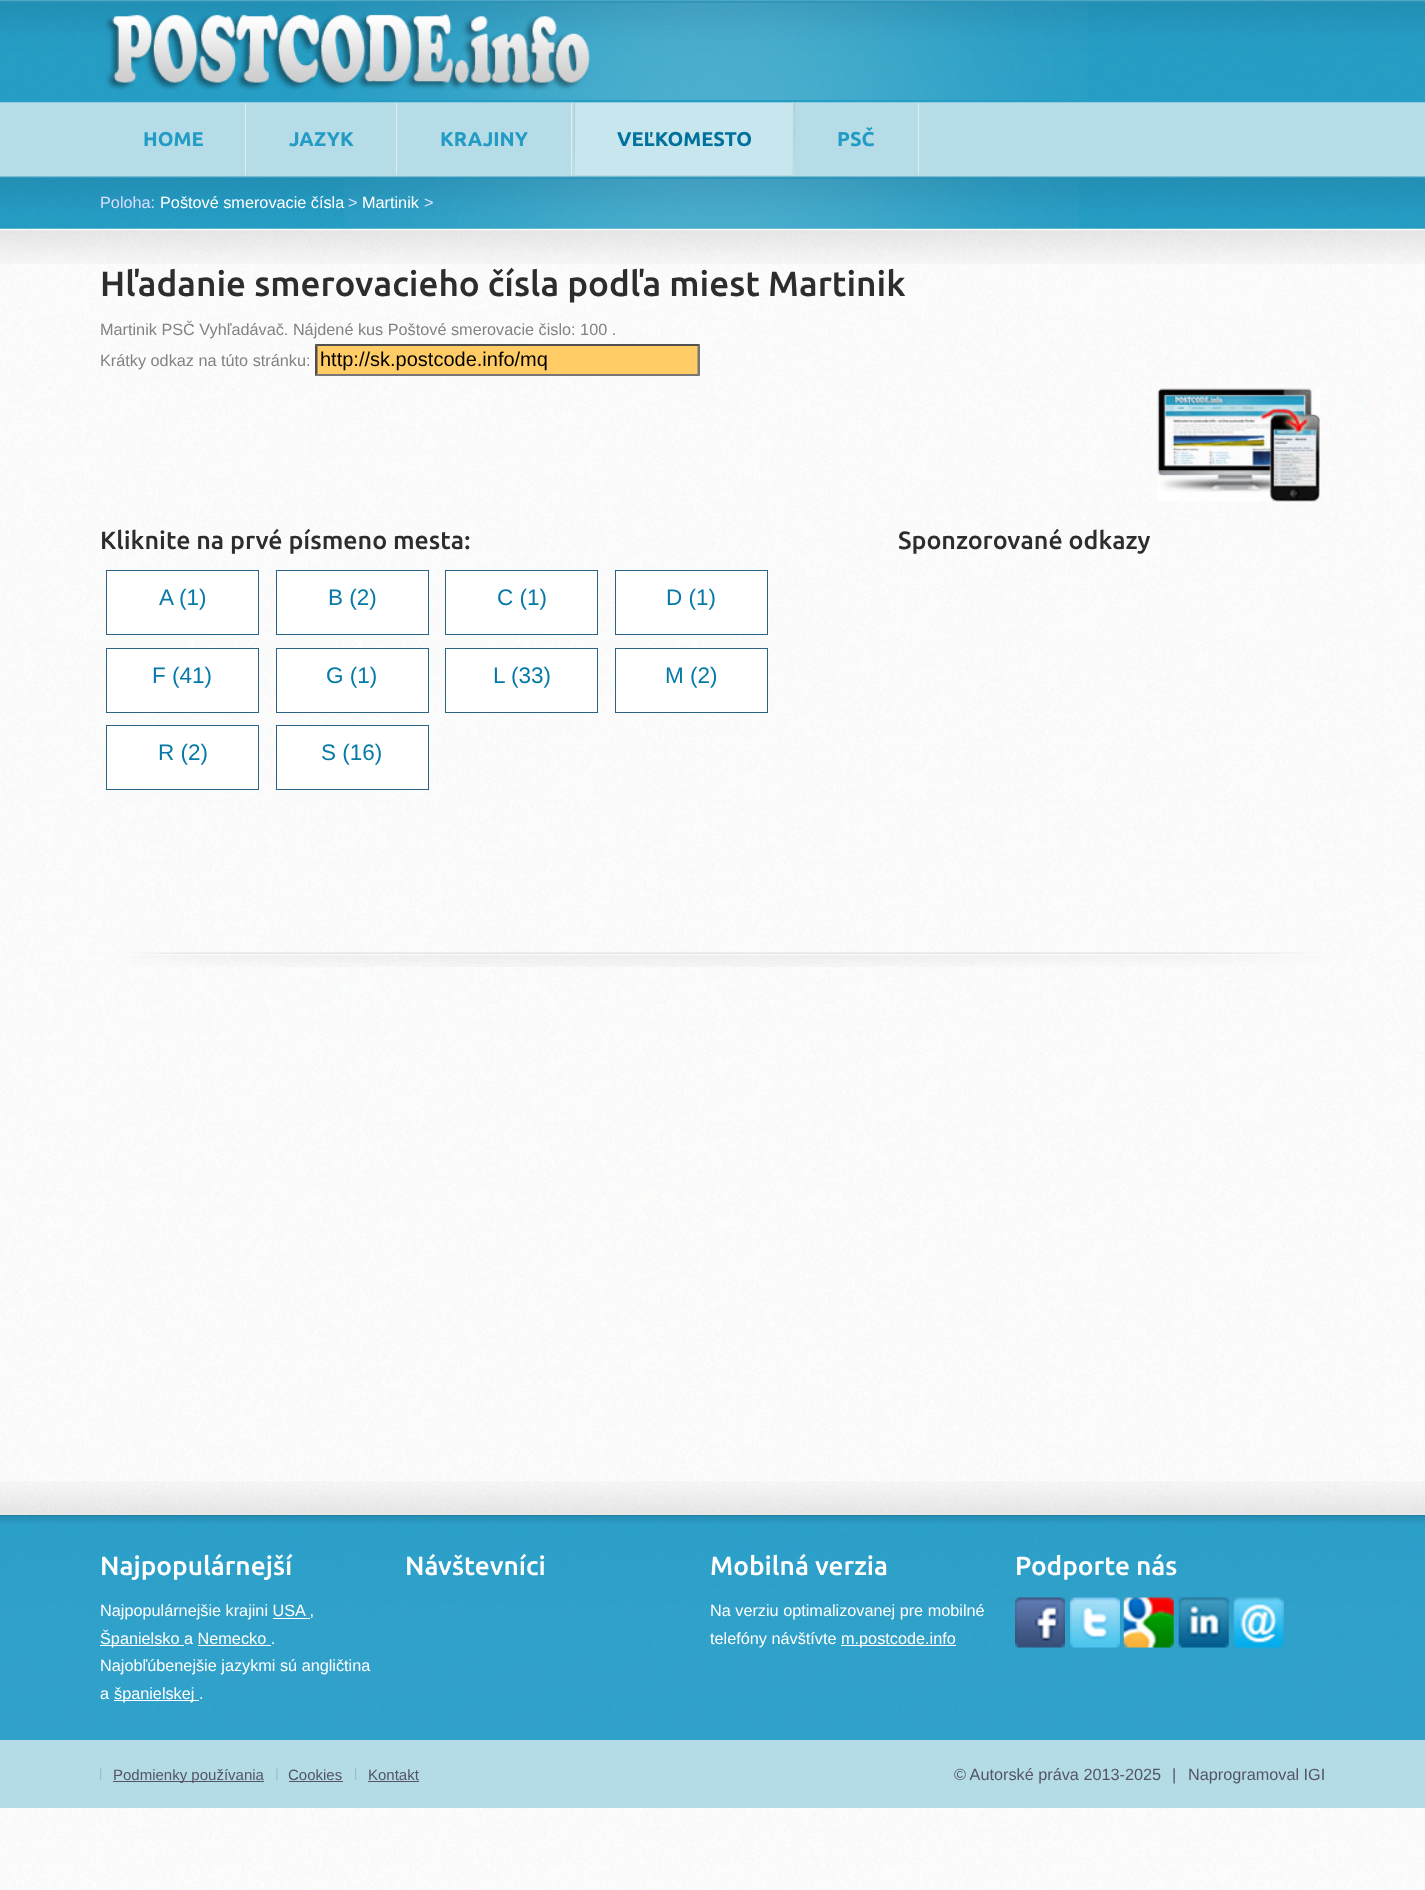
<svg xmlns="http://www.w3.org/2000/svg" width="1425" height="1890">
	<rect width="100%" height="100%" fill="#FFFFFF" />
	<image x="0" y="102" width="1425" height="1788" href="assets/img1.png" />
	<image x="0" y="0" width="1425" height="103" href="assets/img2.png" />
	<image x="336" y="2" width="752" height="98" href="assets/img3.png" />
	<image x="105" y="13" width="486" height="77" href="assets/img4.png" />
	<rect x="0" y="103" width="1425" height="73" fill="#B6DDE7" />
	<rect x="245" y="103" width="1" height="72" fill="#DBEEF3" />
	<text x="143" y="146" font-family="Ubuntu" font-size="20" font-weight="700" fill="#239CC5">HOME</text>
	<rect x="396" y="103" width="1" height="72" fill="#DBEEF3" />
	<text x="289" y="146" font-family="Ubuntu" font-size="20" font-weight="700" fill="#239CC5">JAZYK</text>
	<rect x="571" y="103" width="1" height="72" fill="#DBEEF3" />
	<text x="440" y="146" font-family="Ubuntu" font-size="20" font-weight="700" fill="#239CC5">KRAJINY</text>
	<image x="572" y="102" width="3" height="73" href="assets/img5.png" />
	<rect x="575" y="103" width="218" height="72" fill="#C8E6ED" />
	<image x="792" y="102" width="3" height="73" href="assets/img6.png" />
	<text x="617" y="146" font-family="Ubuntu" font-size="20" font-weight="700" fill="#00719D">VEĽKOMESTO</text>
	<rect x="918" y="103" width="1" height="72" fill="#DBEEF3" />
	<text x="837" y="146" font-family="Ubuntu" font-size="20" font-weight="700" fill="#239CC5">PSČ</text>
	<image x="0" y="176" width="1425" height="53" href="assets/img7.png" />
	<image x="344" y="178" width="735" height="51" href="assets/img8.png" />
	<text x="100" y="208" font-family="Liberation Sans" font-size="16.25" fill="#DDDDFF">Poloha:</text>
	<text x="160" y="208" font-family="Liberation Sans" font-size="16.25" fill="#FFFFFF">Poštové smerovacie čísla</text>
	<text x="348" y="208" font-family="Liberation Sans" font-size="16.25" fill="#DDDDFF">&gt;</text>
	<text x="362" y="208" font-family="Liberation Sans" font-size="16.25" fill="#FFFFFF">Martinik</text>
	<text x="424" y="208" font-family="Liberation Sans" font-size="16.25" fill="#DDDDFF">&gt;</text>
	<image x="0" y="230" width="1425" height="34" href="assets/img9.png" />
	<text x="100" y="296" font-family="Ubuntu" font-size="35" font-weight="500" fill="#2D2D2D">Hľadanie smerovacieho čísla podľa miest Martinik</text>
	<g font-family="Liberation Sans" font-size="16.25" fill="#828282">
		<text x="100" y="335">Martinik PSČ Vyhľadávač. Nájdené kus Poštové smerovacie čislo: 100 .</text>
		<text x="100" y="366">Krátky odkaz na túto stránku:</text>
	</g>
	<rect x="315" y="344" width="385" height="32" fill="#FFCC66" />
	<path d="M315 344H700L698 346H318Z" fill="#4F4F4F" />
	<path d="M700 344V376L697.5 374V346Z" fill="#767676" />
	<path d="M700 376H315L318 374H698Z" fill="#767676" />
	<path d="M315 376V344L317.5 346V374Z" fill="#4F4F4F" />
	<text x="320" y="366" font-family="Liberation Sans" font-size="20" fill="#000000">http://sk.postcode.info/mq</text>
	<image x="1157" y="388" width="163" height="114" href="assets/img10.png" />
	<text x="100" y="549" font-family="Ubuntu" font-size="25" font-weight="500" fill="#2D2D2D">Kliknite na prvé písmeno mesta:</text>
	<rect x="106.5" y="570.5" width="152" height="64" fill="#FFFFFF" stroke="#2A6384" />
	<text x="159" y="605" font-family="Liberation Sans" font-size="22.5" fill="#067AA7">A (1)</text>
	<rect x="276.5" y="570.5" width="152" height="64" fill="#FFFFFF" stroke="#2A6384" />
	<text x="328" y="605" font-family="Liberation Sans" font-size="22.5" fill="#067AA7">B (2)</text>
	<rect x="445.5" y="570.5" width="152" height="64" fill="#FFFFFF" stroke="#2A6384" />
	<text x="497" y="605" font-family="Liberation Sans" font-size="22.5" fill="#067AA7">C (1)</text>
	<rect x="615.5" y="570.5" width="152" height="64" fill="#FFFFFF" stroke="#2A6384" />
	<text x="666" y="605" font-family="Liberation Sans" font-size="22.5" fill="#067AA7">D (1)</text>
	<rect x="106.5" y="648.5" width="152" height="64" fill="#FFFFFF" stroke="#2A6384" />
	<text x="152" y="683" font-family="Liberation Sans" font-size="22.5" fill="#067AA7">F (41)</text>
	<rect x="276.5" y="648.5" width="152" height="64" fill="#FFFFFF" stroke="#2A6384" />
	<text x="326" y="683" font-family="Liberation Sans" font-size="22.5" fill="#067AA7">G (1)</text>
	<rect x="445.5" y="648.5" width="152" height="64" fill="#FFFFFF" stroke="#2A6384" />
	<text x="493" y="683" font-family="Liberation Sans" font-size="22.5" fill="#067AA7">L (33)</text>
	<rect x="615.5" y="648.5" width="152" height="64" fill="#FFFFFF" stroke="#2A6384" />
	<text x="665" y="683" font-family="Liberation Sans" font-size="22.5" fill="#067AA7">M (2)</text>
	<rect x="106.5" y="725.5" width="152" height="64" fill="#FFFFFF" stroke="#2A6384" />
	<text x="158" y="760" font-family="Liberation Sans" font-size="22.5" fill="#067AA7">R (2)</text>
	<rect x="276.5" y="725.5" width="152" height="64" fill="#FFFFFF" stroke="#2A6384" />
	<text x="321" y="760" font-family="Liberation Sans" font-size="22.5" fill="#067AA7">S (16)</text>
	<text x="898" y="549" font-family="Ubuntu" font-size="25" font-weight="500" fill="#2D2D2D">Sponzorované odkazy</text>
	<image x="130" y="952" width="1191" height="15" href="assets/img11.png" />
	<rect x="0" y="1514" width="1425" height="1" fill="#FFFFFF" />
	<image x="0" y="1481" width="1425" height="34" href="assets/img12.png" />
	<image x="0" y="1515" width="1425" height="225" href="assets/img13.png" />
	<text x="100" y="1575" font-family="Ubuntu" font-size="26.25" font-weight="500" fill="#FFFFFF">Najpopulárnejší</text>
	<text x="100" y="1616" font-family="Liberation Sans" font-size="16.25" fill="#FFFFFF">Najpopulárnejšie krajini USA ,</text>
	<rect x="273" y="1618" width="37" height="1" fill="#FFFFFF" />
	<rect x="100" y="1645" width="84" height="1" fill="#FFFFFF" />
	<text x="100" y="1644" font-family="Liberation Sans" font-size="16.25" fill="#FFFFFF">Španielsko a Nemecko .</text>
	<rect x="198" y="1645" width="73" height="1" fill="#FFFFFF" />
	<g font-family="Liberation Sans" font-size="16.25" fill="#FFFFFF">
		<text x="100" y="1671">Najobľúbenejšie jazykmi sú angličtina</text>
		<text x="100" y="1699">a</text>
	</g>
	<rect x="114" y="1700" width="85" height="1" fill="#FFFFFF" />
	<text x="114" y="1699" font-family="Liberation Sans" font-size="16.25" fill="#FFFFFF">španielskej .</text>
	<g font-family="Ubuntu" font-size="26.25" font-weight="500" fill="#FFFFFF">
		<text x="405" y="1575">Návštevníci</text>
		<text x="710" y="1575">Mobilná verzia</text>
	</g>
	<g font-family="Liberation Sans" font-size="16.25" fill="#FFFFFF">
		<text x="710" y="1616">Na verziu optimalizovanej pre mobilné</text>
		<text x="710" y="1644">telefóny návštívte</text>
	</g>
	<rect x="841" y="1645" width="115" height="1" fill="#FFFFFF" />
	<text x="841" y="1644" font-family="Liberation Sans" font-size="16.25" fill="#FFFFFF">m.postcode.info</text>
	<text x="1015" y="1575" font-family="Ubuntu" font-size="26.25" font-weight="500" fill="#FFFFFF">Podporte nás</text>
	<image x="1015" y="1597" width="50" height="51" href="assets/img14.png" />
	<image x="1070" y="1597" width="50" height="51" href="assets/img15.png" />
	<image x="1123" y="1597" width="51" height="51" href="assets/img16.png" />
	<image x="1178" y="1597" width="51" height="51" href="assets/img17.png" />
	<image x="1233" y="1597" width="51" height="51" href="assets/img18.png" />
	<rect x="0" y="1740" width="1425" height="68" fill="#B3DCE6" />
	<image x="100" y="1767" width="2" height="13" href="assets/img19.png" />
	<rect x="113" y="1781" width="151" height="1" fill="#555566" />
	<text x="113" y="1780" font-family="Liberation Sans" font-size="15" fill="#555566">Podmienky používania</text>
	<image x="276" y="1767" width="2" height="13" href="assets/img20.png" />
	<text x="288" y="1780" font-family="Liberation Sans" font-size="15" fill="#555566">Cookies</text>
	<rect x="289" y="1781" width="54" height="1" fill="#555566" />
	<image x="355" y="1767" width="2" height="13" href="assets/img19.png" />
	<text x="368" y="1780" font-family="Liberation Sans" font-size="15" fill="#555566">Kontakt</text>
	<rect x="368" y="1781" width="51" height="1" fill="#555566" />
	<g font-family="Liberation Sans" font-size="16.25" fill="#555566">
		<text x="954" y="1780">© Autorské práva 2013-2025</text>
		<text x="1172" y="1780">|</text>
		<text x="1188" y="1780">Naprogramoval IGI</text>
	</g>
</svg>
